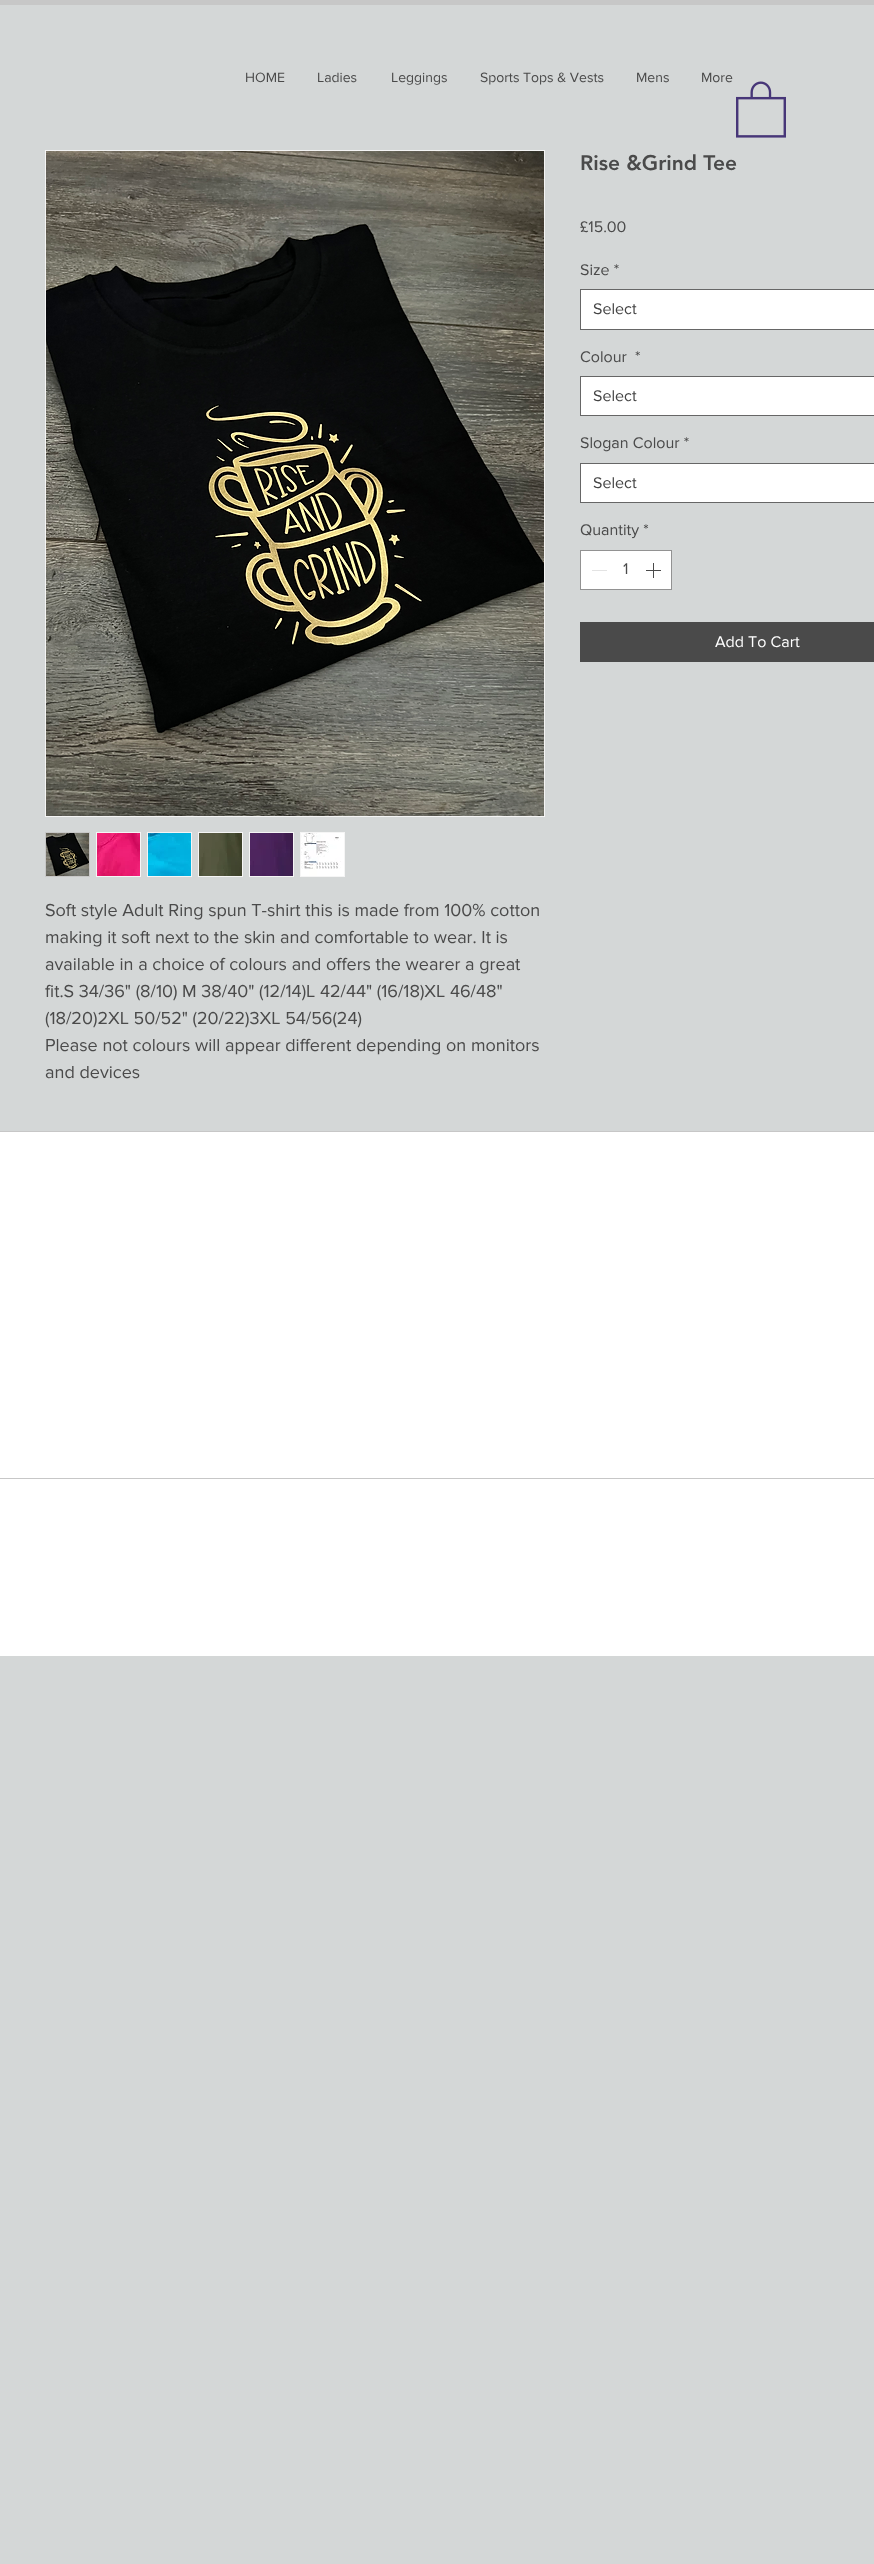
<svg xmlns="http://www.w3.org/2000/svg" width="874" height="2564">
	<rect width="100%" height="100%" fill="#D4D7D7" />
	<rect x="0" y="0" width="874" height="5" fill="#C7C7C7" />
	<g font-family="'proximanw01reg'" font-size="14" fill="#4A4A4A">
		<text x="245" y="82">HOME</text>
		<text x="317" y="82">Ladies</text>
		<text x="391" y="82">Leggings</text>
		<text x="480" y="82">Sports Tops &amp; Vests</text>
		<text x="636" y="82">Mens</text>
		<text x="701" y="82">More</text>
	</g>
	<image x="736" y="81" width="50" height="57" href="assets/img1.png" />
	<text x="580" y="170" font-family="'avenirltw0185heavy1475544'" font-size="21" font-weight="900" fill="#4A4A4A">Rise &amp;Grind Tee</text>
	<g font-family="'proximanw01reg'" font-size="16" fill="#4A4A4A">
		<text x="580" y="232">£15.00</text>
		<text x="580" y="275">Size *</text>
	</g>
	<rect x="580.5" y="289.5" width="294" height="40" fill="#FFFFFF" stroke="#666666" />
	<text x="593" y="314" font-family="'proximanw01reg'" font-size="16" fill="#444444">Select</text>
	<g font-family="'proximanw01reg'" font-size="16" fill="#4A4A4A">
		<text x="580" y="362">Colour</text>
		<text x="635" y="362">*</text>
	</g>
	<rect x="580.5" y="376.5" width="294" height="39" fill="#FFFFFF" stroke="#666666" />
	<text x="593" y="401" font-family="'proximanw01reg'" font-size="16" fill="#444444">Select</text>
	<text x="580" y="448" font-family="'proximanw01reg'" font-size="16" fill="#4A4A4A">Slogan Colour *</text>
	<rect x="580.5" y="463.5" width="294" height="39" fill="#FFFFFF" stroke="#666666" />
	<text x="593" y="488" font-family="'proximanw01reg'" font-size="16" fill="#444444">Select</text>
	<text x="580" y="535" font-family="'proximanw01reg'" font-size="16" fill="#4A4A4A">Quantity *</text>
	<rect x="580.5" y="550.5" width="91" height="39" fill="#FFFFFF" stroke="#929292" />
	<rect x="592" y="570" width="15" height="1" fill="#E3E3E3" />
	<text x="623" y="574" font-family="'proximanw01reg'" font-size="16" fill="#4A4A4A">1</text>
	<image x="646" y="563" width="15" height="15" href="assets/img2.png" />
	<rect x="580" y="622" width="294" height="40" fill="#4A4A4A" />
	<text x="715" y="647" font-family="'proximanw01reg'" font-size="16" fill="#FFFFFF">Add To Cart</text>
	<rect x="45.5" y="150.5" width="499" height="666" fill="none" stroke="#F5F5F5" />
	<image x="46" y="151" width="498" height="665" href="assets/img3.png" />
	<rect x="45.5" y="832.5" width="44" height="44" fill="none" stroke="#C7C7C7" />
	<image x="46" y="833" width="43" height="43" href="assets/img4.png" />
	<rect x="96" y="832" width="45" height="45" fill="#F5F5F5" />
	<image x="97" y="833" width="43" height="43" href="assets/img5.png" />
	<rect x="147" y="832" width="45" height="45" fill="#F5F5F5" />
	<image x="148" y="833" width="43" height="43" href="assets/img6.png" />
	<rect x="198" y="832" width="45" height="45" fill="#F5F5F5" />
	<image x="199" y="833" width="43" height="43" href="assets/img7.png" />
	<rect x="249" y="832" width="45" height="45" fill="#F5F5F5" />
	<image x="250" y="833" width="43" height="43" href="assets/img8.png" />
	<rect x="300" y="832" width="45" height="45" fill="#F5F5F5" />
	<image x="301" y="833" width="43" height="43" href="assets/img9.png" />
	<g font-family="'proximanw01reg'" font-size="18" fill="#4A4A4A">
		<text x="45" y="916">Soft style Adult Ring spun T-shirt this is made from 100% cotton</text>
		<text x="45" y="943">making it soft next to the skin and comfortable to wear. It is</text>
		<text x="45" y="970">available in a choice of colours and offers the wearer a great</text>
		<text x="45" y="997">fit.S 34/36" (8/10) M 38/40" (12/14)L 42/44" (16/18)XL 46/48"</text>
		<text x="45" y="1024">(18/20)2XL 50/52" (20/22)3XL 54/56(24)</text>
		<text x="45" y="1051">Please not colours will appear different depending on monitors</text>
		<text x="45" y="1078">and devices</text>
	</g>
	<rect x="0" y="1132" width="874" height="524" fill="#FFFFFF" />
	<rect x="0" y="1131" width="874" height="1" fill="#C7C7C7" />
	<rect x="0" y="1478" width="874" height="1" fill="#C7C7C7" />
</svg>
